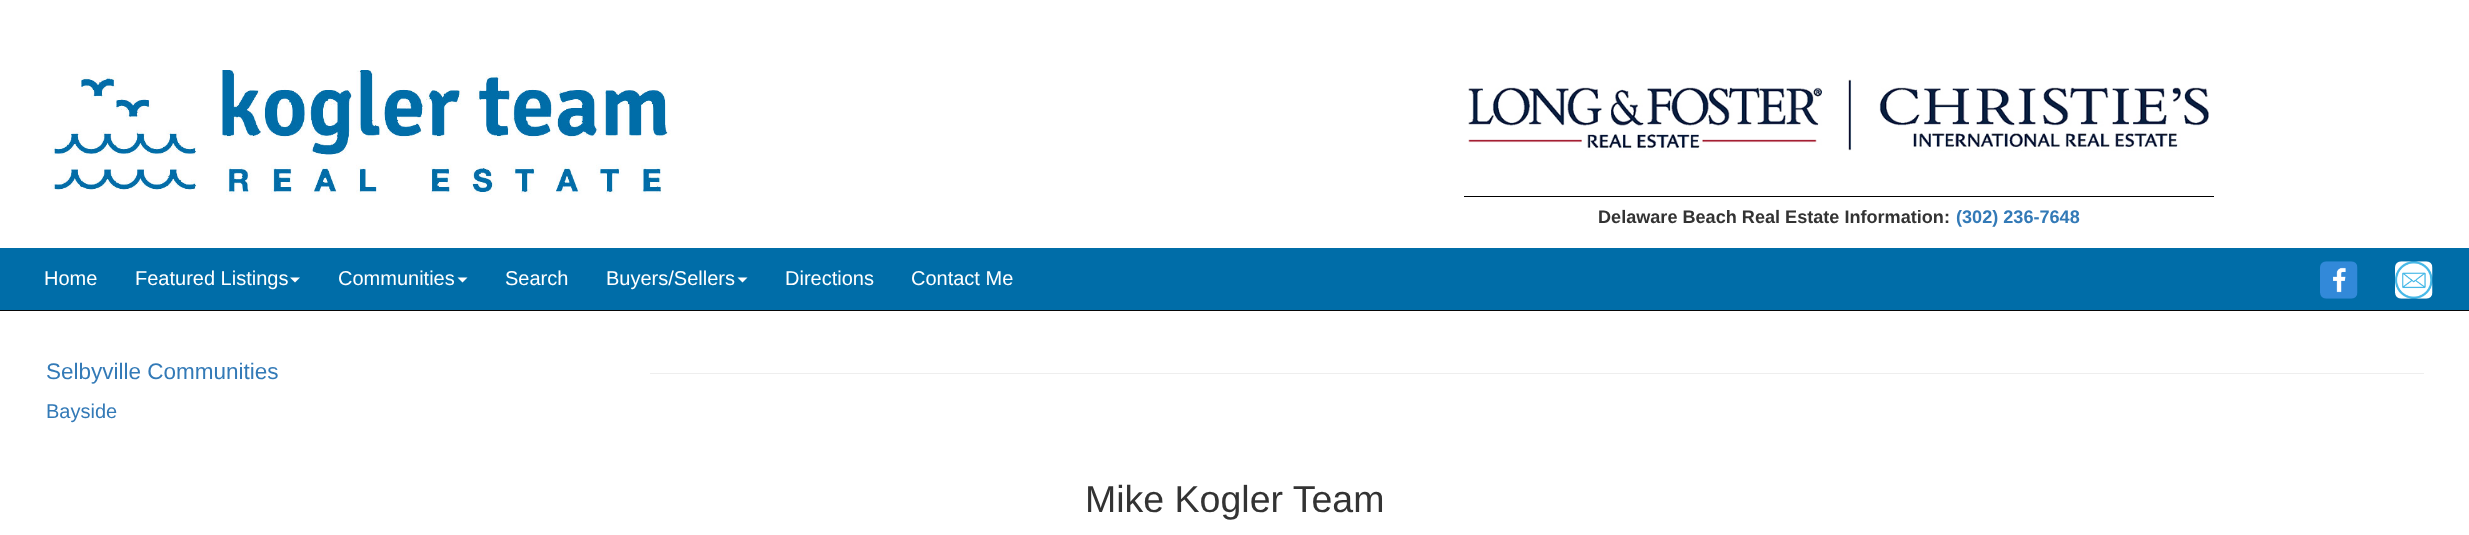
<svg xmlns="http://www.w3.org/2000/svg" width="2469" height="535">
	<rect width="100%" height="100%" fill="#FFFFFF" />
	<image x="51" y="70" width="620" height="125" href="assets/img1.png" />
	<image x="1468" y="79" width="741" height="72" href="assets/img2.png" />
	<rect x="1464" y="196" width="750" height="1" fill="#000000" />
	<text x="1598" y="223" font-family="Liberation Sans" font-size="18.1" font-weight="700" fill="#333333">Delaware Beach Real Estate Information:</text>
	<text x="1956" y="223" font-family="Liberation Sans" font-size="18.1" font-weight="700" fill="#337AB7">(302) 236-7648</text>
	<rect x="0" y="248" width="2469" height="62" fill="#006DA8" />
	<rect x="0" y="310" width="2469" height="1" fill="#080808" />
	<g font-family="Liberation Sans" font-size="20" fill="#FFFFFF">
		<text x="44" y="285">Home</text>
		<text x="135" y="285">Featured Listings</text>
	</g>
	<path d="M290 277.5H300L295 282.5Z" fill="#FFFFFF" />
	<text x="338" y="285" font-family="Liberation Sans" font-size="20" fill="#FFFFFF">Communities</text>
	<path d="M457.5 277.5H467.5L462.5 282.5Z" fill="#FFFFFF" />
	<g font-family="Liberation Sans" font-size="20" fill="#FFFFFF">
		<text x="505" y="285">Search</text>
		<text x="606" y="285">Buyers/Sellers</text>
	</g>
	<path d="M737.5 277.5H747.5L742.5 282.5Z" fill="#FFFFFF" />
	<g font-family="Liberation Sans" font-size="20" fill="#FFFFFF">
		<text x="785" y="285">Directions</text>
		<text x="911" y="285">Contact Me</text>
	</g>
	<image x="2320" y="261" width="38" height="38" href="assets/img3.png" />
	<image x="2395" y="261" width="38" height="38" href="assets/img4.png" />
	<text x="46" y="379" font-family="Liberation Sans" font-size="22.5" fill="#337AB7">Selbyville Communities</text>
	<text x="46" y="418" font-family="Liberation Sans" font-size="20" fill="#337AB7">Bayside</text>
	<rect x="650" y="373" width="1774" height="1" fill="#EEEEEE" />
	<text x="1085" y="512" font-family="Liberation Sans" font-size="37.5" fill="#333333">Mike Kogler Team</text>
</svg>
